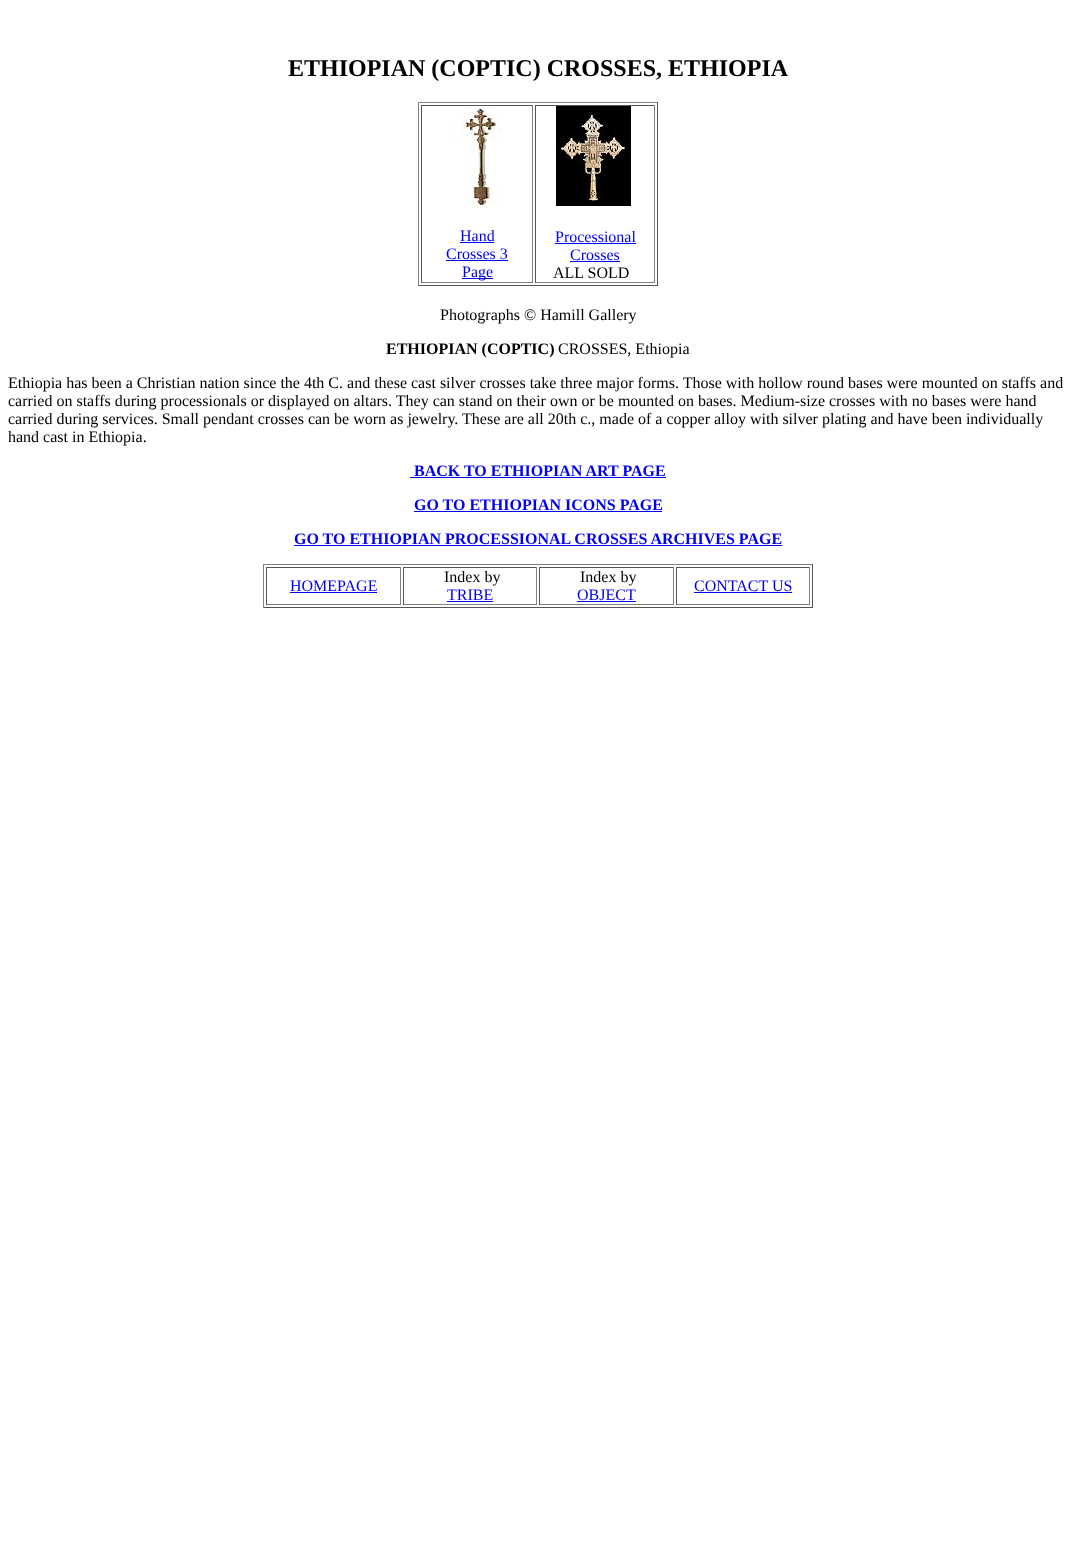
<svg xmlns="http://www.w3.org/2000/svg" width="1076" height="1565">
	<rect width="100%" height="100%" fill="#FFFFFF" />
	<text x="288" y="76" font-family="Liberation Serif" font-size="24" font-weight="700" fill="#000000">ETHIOPIAN (COPTIC) CROSSES, ETHIOPIA</text>
	<rect x="418" y="102" width="240" height="1" fill="#808080" />
	<rect x="657" y="102" width="1" height="184" fill="#555555" />
	<rect x="418" y="285" width="240" height="1" fill="#555555" />
	<rect x="418" y="102" width="1" height="184" fill="#808080" />
	<rect x="421" y="105" width="112" height="1" fill="#555555" />
	<rect x="532" y="105" width="1" height="178" fill="#808080" />
	<rect x="421" y="282" width="112" height="1" fill="#808080" />
	<rect x="421" y="105" width="1" height="178" fill="#555555" />
	<image x="454" y="107" width="48" height="100" href="assets/img1.png" />
	<text x="460" y="241" font-family="Liberation Serif" font-size="16" fill="#0000EE">Hand</text>
	<rect x="460" y="242" width="34" height="1" fill="#0000EE" />
	<text x="446" y="259" font-family="Liberation Serif" font-size="16" fill="#0000EE">Crosses 3</text>
	<rect x="446" y="260" width="62" height="1" fill="#0000EE" />
	<rect x="462" y="278" width="31" height="1" fill="#0000EE" />
	<text x="462" y="277" font-family="Liberation Serif" font-size="16" fill="#0000EE">Page</text>
	<rect x="535" y="105" width="120" height="1" fill="#555555" />
	<rect x="654" y="105" width="1" height="178" fill="#808080" />
	<rect x="535" y="282" width="120" height="1" fill="#808080" />
	<rect x="535" y="105" width="1" height="178" fill="#555555" />
	<image x="556" y="106" width="75" height="100" href="assets/img2.png" />
	<text x="555" y="242" font-family="Liberation Serif" font-size="16" fill="#0000EE">Processional</text>
	<rect x="555" y="243" width="81" height="1" fill="#0000EE" />
	<text x="570" y="260" font-family="Liberation Serif" font-size="16" fill="#0000EE">Crosses</text>
	<rect x="570" y="261" width="50" height="1" fill="#0000EE" />
	<g font-family="Liberation Serif" font-size="16" fill="#000000">
		<text x="553" y="278">ALL SOLD</text>
		<text x="440" y="320">Photographs © Hamill Gallery</text>
	</g>
	<text x="386" y="354" font-family="Liberation Serif" font-size="16" font-weight="700" fill="#000000">ETHIOPIAN (COPTIC)</text>
	<g font-family="Liberation Serif" font-size="16" fill="#000000">
		<text x="558" y="354">CROSSES, Ethiopia</text>
		<text x="8" y="388">Ethiopia has been a Christian nation since the 4th C. and these cast silver crosses take three major forms. Those with hollow round bases were mounted on staffs and</text>
		<text x="8" y="406">carried on staffs during processionals or displayed on altars. They can stand on their own or be mounted on bases. Medium-size crosses with no bases were hand</text>
		<text x="8" y="424">carried during services. Small pendant crosses can be worn as jewelry. These are all 20th c., made of a copper alloy with silver plating and have been individually</text>
		<text x="8" y="442">hand cast in Ethiopia.</text>
	</g>
	<text x="414" y="476" font-family="Liberation Serif" font-size="16" font-weight="700" fill="#0000EE">BACK TO ETHIOPIAN ART PAGE</text>
	<rect x="410" y="477" width="256" height="1" fill="#0000EE" />
	<text x="414" y="510" font-family="Liberation Serif" font-size="16" font-weight="700" fill="#0000EE">GO TO ETHIOPIAN ICONS PAGE</text>
	<rect x="414" y="511" width="248" height="1" fill="#0000EE" />
	<text x="294" y="544" font-family="Liberation Serif" font-size="16" font-weight="700" fill="#0000EE">GO TO ETHIOPIAN PROCESSIONAL CROSSES ARCHIVES PAGE</text>
	<rect x="294" y="545" width="488" height="1" fill="#0000EE" />
	<rect x="263" y="564" width="550" height="1" fill="#808080" />
	<rect x="812" y="564" width="1" height="44" fill="#555555" />
	<rect x="263" y="607" width="550" height="1" fill="#555555" />
	<rect x="263" y="564" width="1" height="44" fill="#808080" />
	<rect x="266" y="567" width="135" height="1" fill="#555555" />
	<rect x="400" y="567" width="1" height="38" fill="#808080" />
	<rect x="266" y="604" width="135" height="1" fill="#808080" />
	<rect x="266" y="567" width="1" height="38" fill="#555555" />
	<text x="290" y="591" font-family="Liberation Serif" font-size="16" fill="#0000EE">HOMEPAGE</text>
	<rect x="290" y="592" width="87" height="1" fill="#0000EE" />
	<rect x="403" y="567" width="134" height="1" fill="#555555" />
	<rect x="536" y="567" width="1" height="38" fill="#808080" />
	<rect x="403" y="604" width="134" height="1" fill="#808080" />
	<rect x="403" y="567" width="1" height="38" fill="#555555" />
	<text x="444" y="582" font-family="Liberation Serif" font-size="16" fill="#000000">Index by</text>
	<text x="447" y="600" font-family="Liberation Serif" font-size="16" fill="#0000EE">TRIBE</text>
	<rect x="447" y="601" width="46" height="1" fill="#0000EE" />
	<rect x="539" y="567" width="135" height="1" fill="#555555" />
	<rect x="673" y="567" width="1" height="38" fill="#808080" />
	<rect x="539" y="604" width="135" height="1" fill="#808080" />
	<rect x="539" y="567" width="1" height="38" fill="#555555" />
	<text x="580" y="582" font-family="Liberation Serif" font-size="16" fill="#000000">Index by</text>
	<text x="577" y="600" font-family="Liberation Serif" font-size="16" fill="#0000EE">OBJECT</text>
	<rect x="577" y="601" width="59" height="1" fill="#0000EE" />
	<rect x="676" y="567" width="134" height="1" fill="#555555" />
	<rect x="809" y="567" width="1" height="38" fill="#808080" />
	<rect x="676" y="604" width="134" height="1" fill="#808080" />
	<rect x="676" y="567" width="1" height="38" fill="#555555" />
	<text x="694" y="591" font-family="Liberation Serif" font-size="16" fill="#0000EE">CONTACT US</text>
	<rect x="694" y="592" width="98" height="1" fill="#0000EE" />
</svg>
